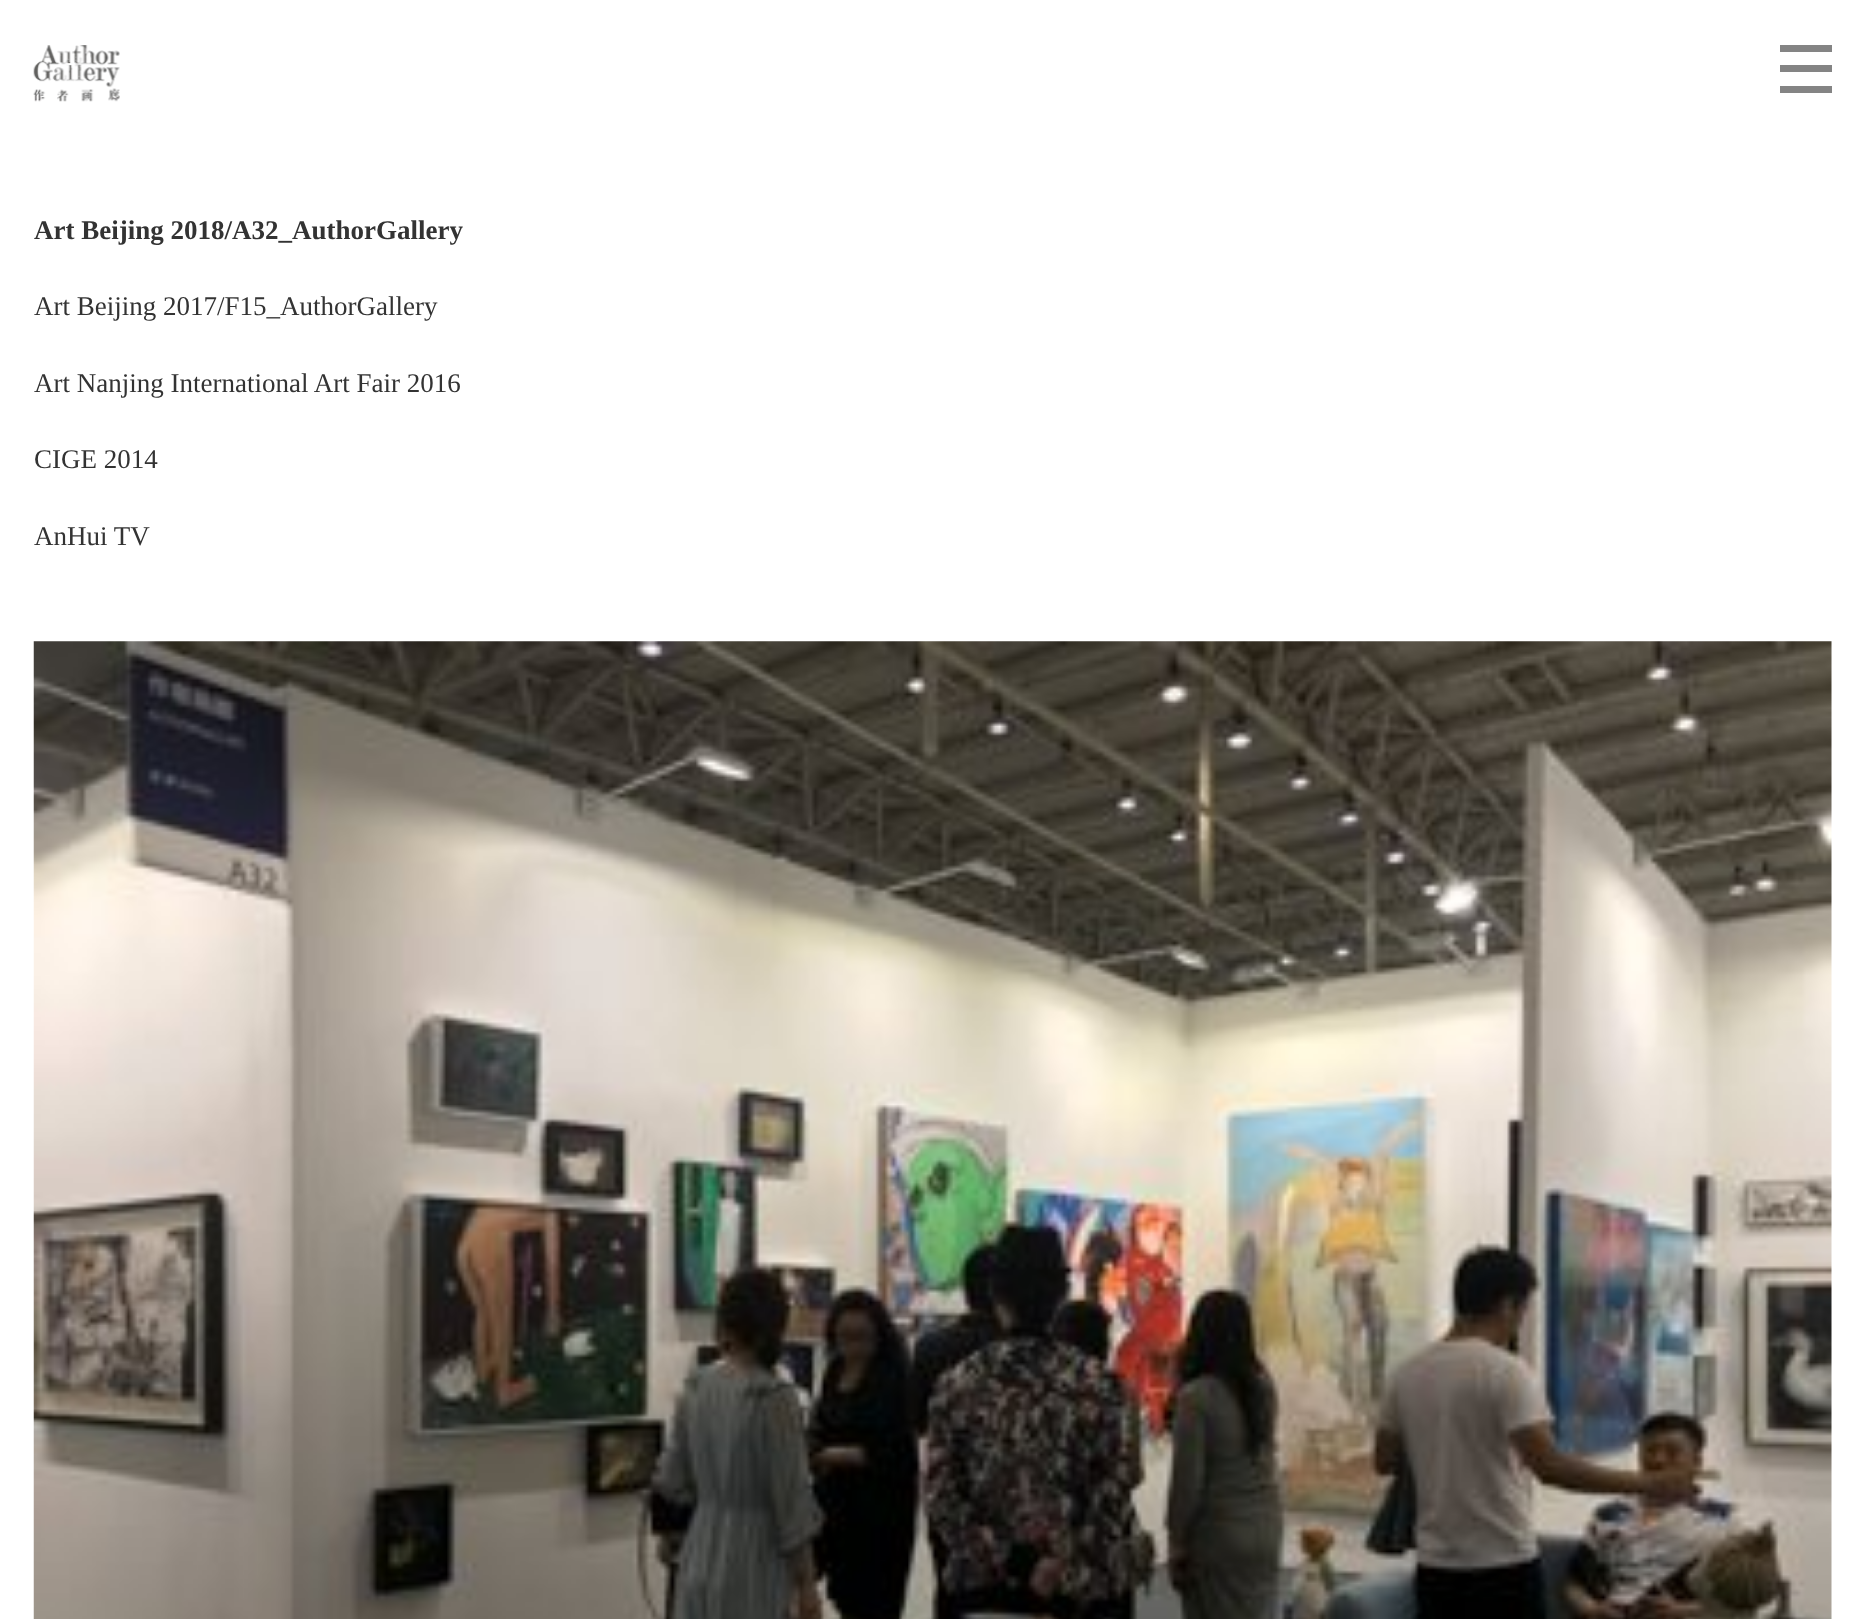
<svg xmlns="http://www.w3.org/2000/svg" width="1864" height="1619">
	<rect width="100%" height="100%" fill="#FFFFFF" />
	<image x="33" y="45" width="87" height="57" href="assets/img1.png" />
	<rect x="1780" y="45" width="52" height="7" fill="#848484" />
	<rect x="1780" y="65" width="52" height="7" fill="#848484" />
	<rect x="1780" y="86" width="52" height="7" fill="#848484" />
	<text x="34" y="239" font-family="Liberation Serif" font-size="27" font-weight="700" fill="#333333">Art Beijing 2018/A32_AuthorGallery</text>
	<g font-family="Liberation Serif" font-size="27" fill="#333333">
		<text x="34" y="315">Art Beijing 2017/F15_AuthorGallery</text>
		<text x="34" y="392">Art Nanjing International Art Fair 2016</text>
		<text x="34" y="468">CIGE 2014</text>
		<text x="34" y="545">AnHui TV</text>
	</g>
	<image x="33" y="641" width="1799" height="978" href="assets/img2.png" />
</svg>
